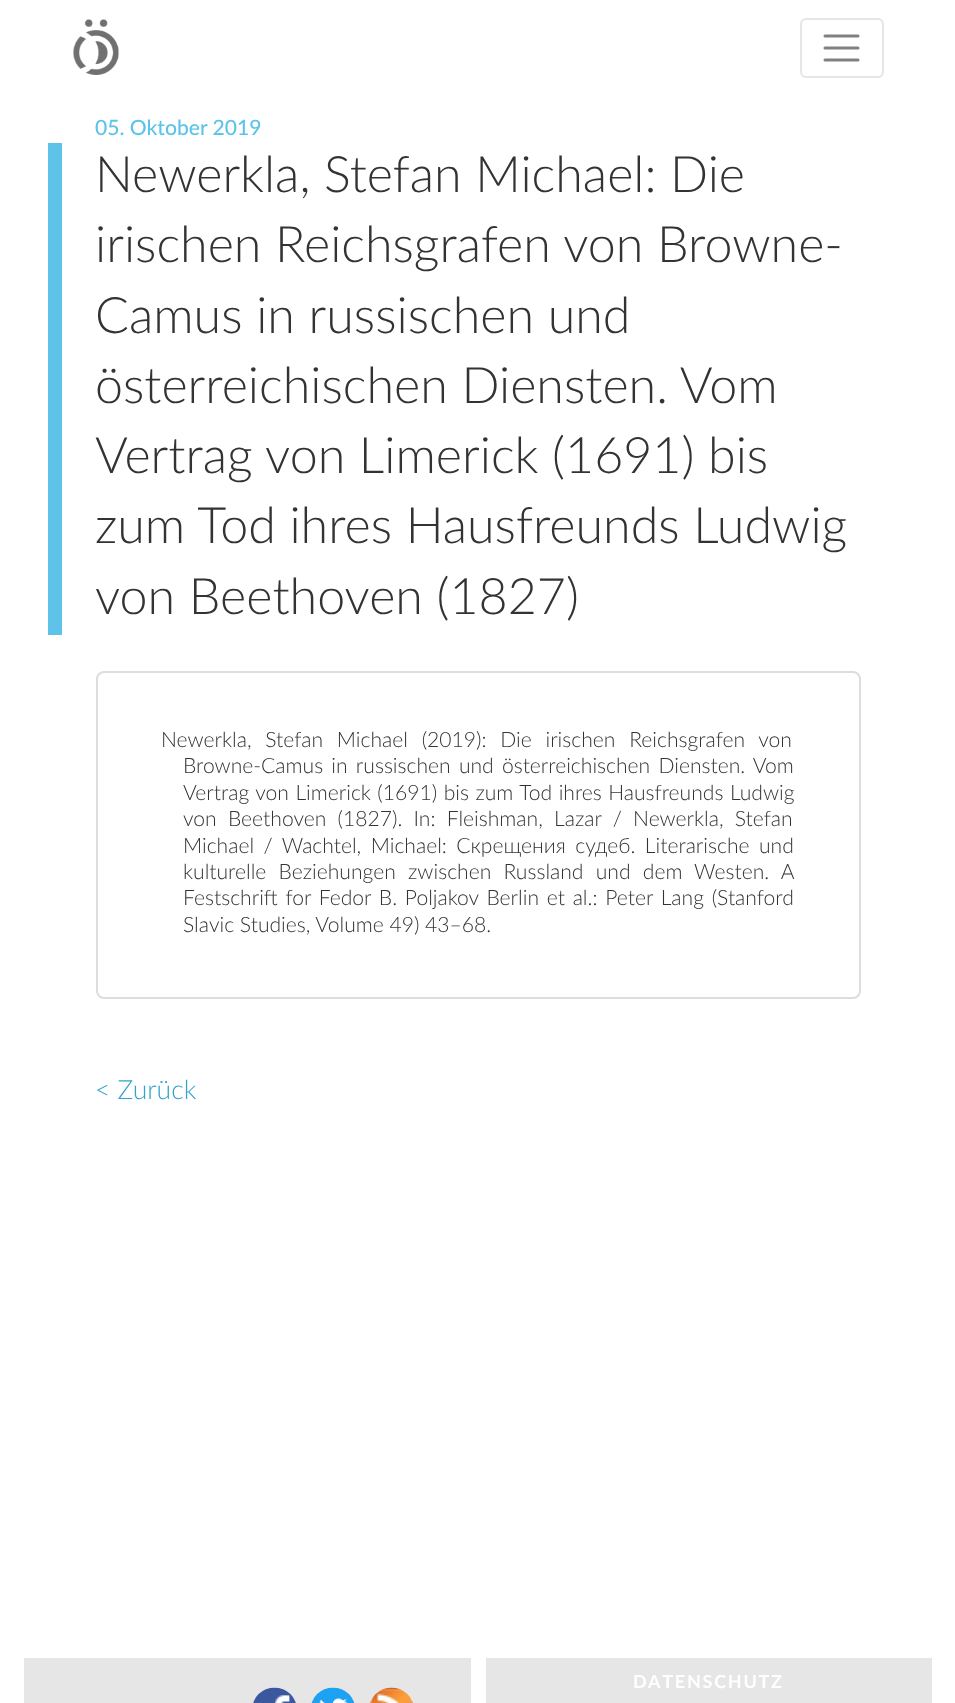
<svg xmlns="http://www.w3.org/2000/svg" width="955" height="1703">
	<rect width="100%" height="100%" fill="#FFFFFF" />
	<image x="73" y="19" width="46" height="56" href="assets/img1.png" />
	<rect x="801" y="19" width="82" height="58" rx="5" fill="none" stroke="#E6E6E6" stroke-width="2" />
	<path d="M825 36H858M825 48H858M825 60H858" fill="none" stroke="#808080" stroke-width="3" stroke-linecap="round" />
	<text x="95" y="135" font-family="Lato" font-size="21.1" font-weight="500" fill="#5DC3E9">05. Oktober 2019</text>
	<rect x="48" y="143" width="14" height="492" fill="#5DC3E9" />
	<g font-family="Lato" font-size="50.2" font-weight="300" fill="#333333">
		<text x="95" y="192">Newerkla, Stefan Michael: Die</text>
		<text x="95" y="262">irischen Reichsgrafen von Browne-</text>
		<text x="95" y="333">Camus in russischen und</text>
		<text x="95" y="403">österreichischen Diensten. Vom</text>
		<text x="95" y="473">Vertrag von Limerick (1691) bis</text>
		<text x="95" y="543">zum Tod ihres Hausfreunds Ludwig</text>
		<text x="95" y="614">von Beethoven (1827)</text>
	</g>
	<rect x="97" y="672" width="763" height="326" rx="7" fill="none" stroke="#DDDDDD" stroke-width="2" />
	<g font-family="Lato" font-size="21.1" font-weight="300" fill="#333333">
		<text x="161" y="747" word-spacing="8">Newerkla, Stefan Michael (2019): Die irischen Reichsgrafen von</text>
		<text x="183" y="773" word-spacing="2.5">Browne-Camus in russischen und österreichischen Diensten. Vom</text>
		<text x="183" y="800" word-spacing="0.75">Vertrag von Limerick (1691) bis zum Tod ihres Hausfreunds Ludwig</text>
		<text x="183" y="826" word-spacing="5.5">von Beethoven (1827). In: Fleishman, Lazar / Newerkla, Stefan</text>
		<text x="183" y="853" word-spacing="3.75">Michael / Wachtel, Michael: Скрещения судеб. Literarische und</text>
		<text x="183" y="879" word-spacing="6.5">kulturelle Beziehungen zwischen Russland und dem Westen. A</text>
		<text x="183" y="905" word-spacing="2">Festschrift for Fedor B. Poljakov Berlin et al.: Peter Lang (Stanford</text>
		<text x="183" y="932">Slavic Studies, Volume 49) 43–68.</text>
	</g>
	<text x="95" y="1099" font-family="Lato" font-size="26.5" font-weight="300" fill="#34A2CB">&lt; Zurück</text>
	<rect x="24" y="1658" width="447" height="45" fill="#E6E6E6" />
	<image x="253" y="1687" width="43" height="16" href="assets/img2.png" />
	<image x="311" y="1687" width="44" height="16" href="assets/img3.png" />
	<image x="370" y="1687" width="43" height="16" href="assets/img4.png" />
	<rect x="486" y="1658" width="446" height="45" fill="#E6E6E6" />
	<text x="633" y="1688" font-family="Lato" font-size="18" font-weight="700" letter-spacing="1.75" fill="#FFFFFF">DATENSCHUTZ</text>
</svg>
